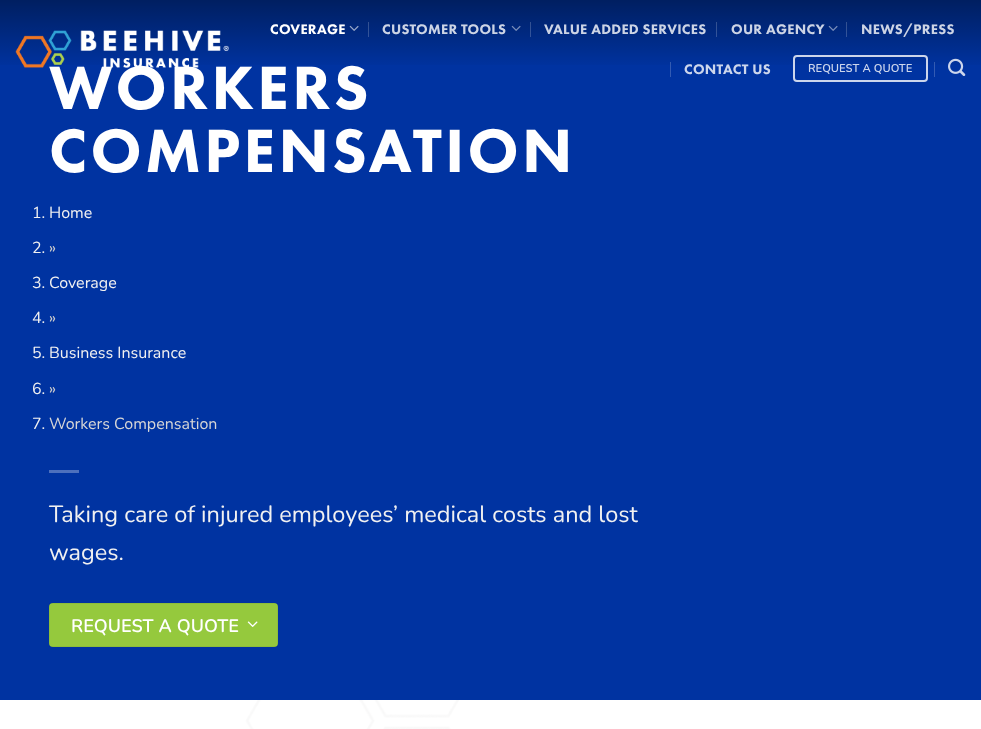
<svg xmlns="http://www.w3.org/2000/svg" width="981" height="729">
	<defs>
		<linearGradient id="g1" gradientUnits="userSpaceOnUse" x1="491" y1="0" x2="491" y2="98"><stop offset="0" stop-color="#000000" stop-opacity="0.4" /><stop offset="0.7" stop-color="#000000" stop-opacity="0" /></linearGradient>
	</defs>
	<rect width="100%" height="100%" fill="#FFFFFF" />
	<rect x="0" y="0" width="981" height="700" fill="#0033A1" />
	<rect x="0" y="0" width="981" height="65" fill="url(#g1)" />
	<text x="49" y="109" font-family="Futura PT" font-size="63.25" font-weight="900" letter-spacing="3.2" fill="#FFFFFF">WORKERS</text>
	<image x="15" y="30" width="214" height="38" href="assets/img1.png" />
	<text x="270" y="34" font-family="Futura PT" font-size="14.4" font-weight="900" letter-spacing="0.25" fill="#FFFFFF">COVERAGE</text>
	<image x="349" y="25" width="10" height="6" href="assets/img2.png" />
	<rect x="368" y="22" width="1" height="15" fill="#FFFFFF" fill-opacity="0.2" />
	<text x="382" y="34" font-family="Futura PT" font-size="14.4" font-weight="900" letter-spacing="0.25" fill="#CCD4E5">CUSTOMER TOOLS</text>
	<image x="511" y="25" width="10" height="6" href="assets/img3.png" />
	<rect x="530" y="22" width="1" height="15" fill="#FFFFFF" fill-opacity="0.2" />
	<text x="544" y="34" font-family="Futura PT" font-size="14.4" font-weight="900" letter-spacing="0.25" fill="#CCD4E5">VALUE ADDED SERVICES</text>
	<rect x="716" y="22" width="1" height="15" fill="#FFFFFF" fill-opacity="0.2" />
	<text x="731" y="34" font-family="Futura PT" font-size="14.4" font-weight="900" letter-spacing="0.25" fill="#CCD4E5">OUR AGENCY</text>
	<image x="828" y="25" width="10" height="6" href="assets/img3.png" />
	<rect x="846" y="22" width="1" height="15" fill="#FFFFFF" fill-opacity="0.2" />
	<text x="861" y="34" font-family="Futura PT" font-size="14.4" font-weight="900" letter-spacing="0.25" fill="#CCD4E5">NEWS/PRESS</text>
	<rect x="670" y="62" width="1" height="15" fill="#FFFFFF" fill-opacity="0.2" />
	<text x="684" y="74" font-family="Futura PT" font-size="14.4" font-weight="900" letter-spacing="0.25" fill="#CCD6EC">CONTACT US</text>
	<rect x="794" y="56" width="133" height="25" rx="3" fill="none" stroke="#FFFFFF" stroke-opacity="0.8" stroke-width="2" />
	<text x="808" y="72" font-family="Nunito" font-size="10.9" font-weight="700" letter-spacing="0.3" fill="#CCD6EC">REQUEST A QUOTE</text>
	<rect x="934" y="62" width="1" height="15" fill="#FFFFFF" fill-opacity="0.2" />
	<image x="948" y="58" width="18" height="18" href="assets/img4.png" />
	<text x="49" y="172" font-family="Futura PT" font-size="63.25" font-weight="900" letter-spacing="3.2" fill="#FFFFFF">COMPENSATION</text>
	<g font-family="Nunito" font-size="16" font-weight="200" fill="#F1F1F1">
		<text x="32" y="218">1.</text>
		<text x="49" y="218">Home</text>
		<text x="32" y="253">2.</text>
	</g>
	<text x="49" y="253" font-family="Nunito" font-size="16" font-weight="200" fill="#CCCCCC">»</text>
	<g font-family="Nunito" font-size="16" font-weight="200" fill="#F1F1F1">
		<text x="32" y="288">3.</text>
		<text x="49" y="288">Coverage</text>
		<text x="32" y="323">4.</text>
	</g>
	<text x="49" y="323" font-family="Nunito" font-size="16" font-weight="200" fill="#CCCCCC">»</text>
	<g font-family="Nunito" font-size="16" font-weight="200" fill="#F1F1F1">
		<text x="32" y="358">5.</text>
		<text x="49" y="358">Business Insurance</text>
		<text x="32" y="394">6.</text>
	</g>
	<text x="49" y="394" font-family="Nunito" font-size="16" font-weight="200" fill="#CCCCCC">»</text>
	<text x="32" y="429" font-family="Nunito" font-size="16" font-weight="200" fill="#F1F1F1">7.</text>
	<text x="49" y="429" font-family="Nunito" font-size="16" font-weight="200" fill="#D6D6D6">Workers Compensation</text>
	<rect x="49" y="470" width="30" height="3" fill="#4D70BD" />
	<g font-family="Nunito" font-size="23.5" font-weight="200" fill="#F1F1F1">
		<text x="49" y="522">Taking care of injured employees’ medical costs and lost</text>
		<text x="49" y="560">wages.</text>
	</g>
	<rect x="49" y="603" width="229" height="44" rx="4" fill="#95C93D" />
	<rect x="49.5" y="603.5" width="228" height="43" fill="none" stroke="#000000" stroke-opacity="0.05" />
	<text x="71" y="632" font-family="Nunito" font-size="17.5" font-weight="700" letter-spacing="0.5" fill="#FFFFFF">REQUEST A QUOTE</text>
	<image x="247" y="621" width="11" height="6" href="assets/img5.png" />
	<image x="245" y="700" width="214" height="29" href="assets/img6.png" />
</svg>
